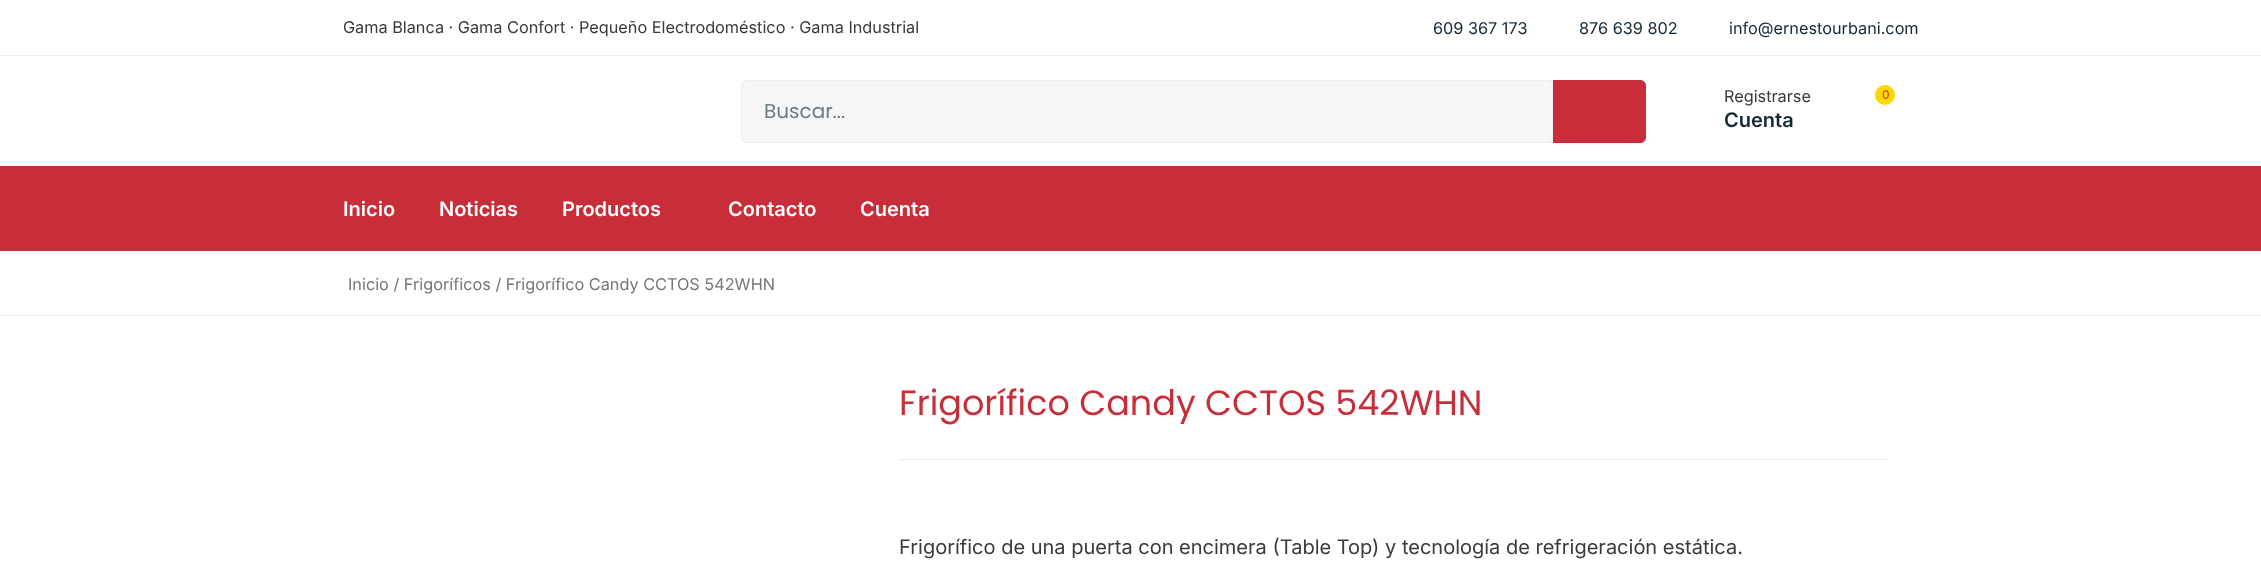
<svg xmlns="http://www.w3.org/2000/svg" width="2261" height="562">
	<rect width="100%" height="100%" fill="#FFFFFF" />
	<rect x="0" y="55" width="2261" height="1" fill="#ECF0F0" />
	<text x="343" y="33" font-family="Inter" font-size="16.25" fill="#3A3A3A">Gama Blanca · Gama Confort · Pequeño Electrodoméstico · Gama Industrial</text>
	<g font-family="Inter" font-size="16.25" fill="#132A36">
		<text x="1433" y="34">609 367 173</text>
		<text x="1579" y="34">876 639 802</text>
		<text x="1729" y="34">info@ernestourbani.com</text>
	</g>
	<rect x="741" y="80" width="905" height="63" rx="6" fill="#ECEEEF" />
	<rect x="741.5" y="80.5" width="811" height="62" rx="5.5" fill="#F6F6F6" stroke="#ECF0F0" />
	<text x="764" y="118" font-family="Poppins" font-size="20" fill="#6E7C83">Buscar...</text>
	<path d="M1553 80H1640C1643.5 80 1646 82.5 1646 86V137C1646 140.5 1643.5 143 1640 143H1553Z" fill="#C72E39" />
	<text x="1724" y="102" font-family="Inter" font-size="16.25" fill="#3A3A3A">Registrarse</text>
	<text x="1724" y="127" font-family="Inter" font-size="20" font-weight="600" fill="#132A36">Cuenta</text>
	<circle cx="1885" cy="95" r="10" fill="#FED700" />
	<text x="1882" y="99" font-family="Poppins" font-size="12" fill="#C72E39">0</text>
	<rect x="0" y="166" width="2261" height="85" fill="#C72E39" />
	<g font-family="Inter" font-size="20" font-weight="600" fill="#FFFFFF">
		<text x="343" y="216">Inicio</text>
		<text x="439" y="216">Noticias</text>
		<text x="562" y="216">Productos</text>
		<text x="728" y="216">Contacto</text>
		<text x="860" y="216">Cuenta</text>
	</g>
	<rect x="0" y="315" width="2261" height="1" fill="#ECF0F0" />
	<text x="348" y="290" font-family="Inter" font-size="16.25" fill="#767676">Inicio / Frigoríficos / Frigorífico Candy CCTOS 542WHN</text>
	<text x="899" y="415" font-family="Poppins" font-size="35" fill="#C72E39">Frigorífico Candy CCTOS 542WHN</text>
	<rect x="899" y="459" width="991" height="1" fill="#ECF0F0" />
	<text x="899" y="554" font-family="Inter" font-size="20" fill="#3A3A3A">Frigorífico de una puerta con encimera (Table Top) y tecnología de refrigeración estática.</text>
</svg>
